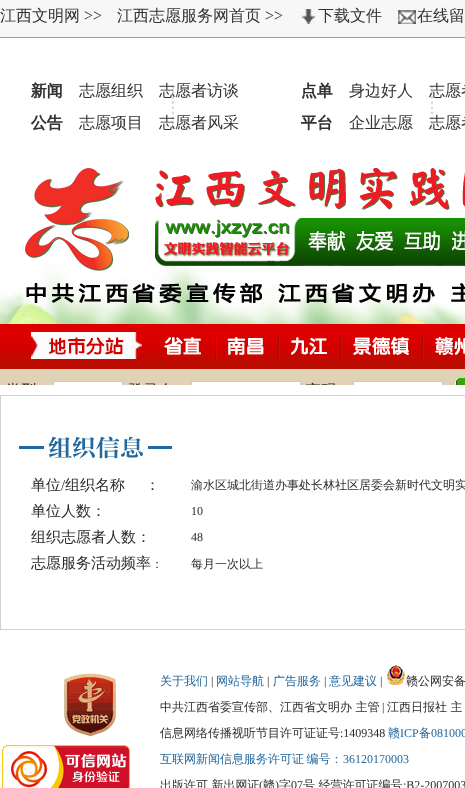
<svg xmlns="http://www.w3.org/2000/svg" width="465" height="788">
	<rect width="100%" height="100%" fill="#FFFFFF" />
	<image x="0" y="0" width="465" height="385" href="assets/img1.png" />
	<rect x="0.5" y="395.5" width="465" height="234" fill="none" stroke="#D0D0D0" />
	<image x="19" y="430" width="160" height="32" href="assets/img2.png" />
	<text x="31" y="490" font-family="WenQuanYi Zen Hei" font-size="15" font-weight="500" fill="#2B2B2B">单位</text>
	<text x="61" y="490" font-family="Liberation Serif" font-size="15" fill="#2B2B2B">/</text>
	<g font-family="WenQuanYi Zen Hei" font-size="15" font-weight="500" fill="#2B2B2B">
		<text x="65" y="490">组织名称</text>
		<text x="145" y="490">：</text>
	</g>
	<text x="191" y="489" font-family="WenQuanYi Zen Hei" font-size="12" font-weight="500" fill="#2B2B2B">渝水区城北街道办事处长林社区居委会新时代文明实</text>
	<text x="31" y="516" font-family="WenQuanYi Zen Hei" font-size="15" font-weight="500" fill="#2B2B2B">单位人数：</text>
	<text x="191" y="515" font-family="Liberation Serif" font-size="12" fill="#2B2B2B">10</text>
	<text x="31" y="542" font-family="WenQuanYi Zen Hei" font-size="15" font-weight="500" fill="#2B2B2B">组织志愿者人数：</text>
	<text x="191" y="541" font-family="Liberation Serif" font-size="12" fill="#2B2B2B">48</text>
	<text x="31" y="568" font-family="WenQuanYi Zen Hei" font-size="15" font-weight="500" fill="#2B2B2B">志愿服务活动频率</text>
	<g font-family="WenQuanYi Zen Hei" font-size="12" font-weight="500" fill="#2B2B2B">
		<text x="151" y="568">：</text>
		<text x="191" y="568">每月一次以上</text>
	</g>
	<image x="64" y="673" width="52" height="64" href="assets/img3.png" />
	<image x="2" y="745" width="128" height="43" href="assets/img4.png" />
	<text x="160" y="685" font-family="WenQuanYi Zen Hei" font-size="12" font-weight="500" fill="#22689E">关于我们</text>
	<text x="211" y="685" font-family="Liberation Serif" font-size="12" fill="#2B2B2B">|</text>
	<text x="216" y="685" font-family="WenQuanYi Zen Hei" font-size="12" font-weight="500" fill="#22689E">网站导航</text>
	<text x="267" y="685" font-family="Liberation Serif" font-size="12" fill="#2B2B2B">|</text>
	<text x="273" y="685" font-family="WenQuanYi Zen Hei" font-size="12" font-weight="500" fill="#22689E">广告服务</text>
	<text x="324" y="685" font-family="Liberation Serif" font-size="12" fill="#2B2B2B">|</text>
	<text x="329" y="685" font-family="WenQuanYi Zen Hei" font-size="12" font-weight="500" fill="#22689E">意见建议</text>
	<text x="380" y="685" font-family="Liberation Serif" font-size="12" fill="#2B2B2B">|</text>
	<image x="387" y="665" width="18" height="20" href="assets/img5.png" />
	<g font-family="WenQuanYi Zen Hei" font-size="12" font-weight="500" fill="#2B2B2B">
		<text x="406" y="685">赣公网安备</text>
		<text x="160" y="711">中共江西省委宣传部、江西省文明办 主管</text>
	</g>
	<text x="382" y="711" font-family="Liberation Serif" font-size="12" fill="#2B2B2B">|</text>
	<g font-family="WenQuanYi Zen Hei" font-size="12" font-weight="500" fill="#2B2B2B">
		<text x="387" y="711">江西日报社 主</text>
		<text x="160" y="737">信息网络传播视听节目许可证证号</text>
	</g>
	<text x="340" y="737" font-family="Liberation Serif" font-size="12" fill="#2B2B2B">:1409348</text>
	<text x="388" y="737" font-family="WenQuanYi Zen Hei" font-size="12" font-weight="500" fill="#22689E">赣</text>
	<text x="400" y="737" font-family="Liberation Serif" font-size="12" fill="#22689E">ICP</text>
	<text x="419" y="737" font-family="WenQuanYi Zen Hei" font-size="12" font-weight="500" fill="#22689E">备</text>
	<text x="431" y="737" font-family="Liberation Serif" font-size="12" fill="#22689E">081000</text>
	<text x="160" y="763" word-spacing="-1" font-family="WenQuanYi Zen Hei" font-size="12" font-weight="500" fill="#22689E">互联网新闻信息服务许可证 编号：</text>
	<text x="343" y="763" font-family="Liberation Serif" font-size="12" fill="#22689E">36120170003</text>
	<text x="160" y="789" font-family="WenQuanYi Zen Hei" font-size="12" font-weight="500" fill="#2B2B2B">出版许可 新出网证</text>
	<text x="259" y="789" font-family="Liberation Serif" font-size="12" fill="#2B2B2B">(</text>
	<text x="263" y="789" font-family="WenQuanYi Zen Hei" font-size="12" font-weight="500" fill="#2B2B2B">赣</text>
	<text x="275" y="789" font-family="Liberation Serif" font-size="12" fill="#2B2B2B">)</text>
	<text x="279" y="789" font-family="WenQuanYi Zen Hei" font-size="12" font-weight="500" fill="#2B2B2B">字</text>
	<text x="291" y="789" font-family="Liberation Serif" font-size="12" fill="#2B2B2B">07</text>
	<text x="303" y="789" font-family="WenQuanYi Zen Hei" font-size="12" font-weight="500" fill="#2B2B2B">号 经营许可证编号</text>
	<text x="403" y="789" font-family="Liberation Serif" font-size="12" fill="#2B2B2B">:B2-2007003</text>
</svg>
